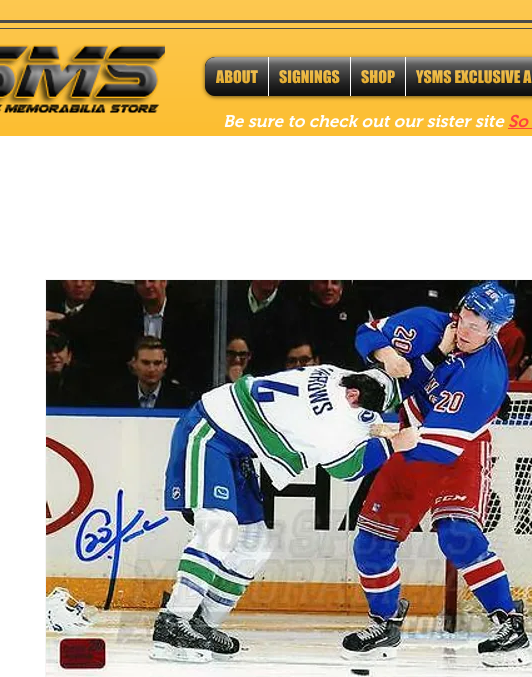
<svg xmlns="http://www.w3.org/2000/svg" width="532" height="677">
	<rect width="100%" height="100%" fill="#FFFFFF" />
	<rect x="0" y="0" width="532" height="136" fill="#FCB514" />
	<image x="0" y="0" width="532" height="136" href="assets/img1.png" />
	<rect x="0" y="20" width="532" height="3" fill="#4A4A4A" />
	<rect x="0" y="28" width="532" height="1" fill="#4A4A4A" />
	<image x="0" y="44" width="165" height="69" href="assets/img2.png" />
	<rect x="205" y="58" width="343" height="39" rx="10" fill="#000000" fill-opacity="0.6" filter="blur(2px)" />
	<image x="205" y="57" width="10" height="39" href="assets/img3.png" />
	<path d="M215 57H268V96H215C209.5 96 205 91.5 205 86V67C205 61.5 209.5 57 215 57Z" fill="#000000" />
	<text x="216" y="83" font-family="'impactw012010'" font-size="16" fill="#FCB514">ABOUT</text>
	<image x="205" y="57" width="63" height="39" href="assets/img4.png" />
	<image x="215" y="70" width="43" height="14" href="assets/img5.png" />
	<rect x="269" y="57" width="81" height="39" fill="#000000" />
	<rect x="268" y="57" width="1" height="39" fill="#FFFFFF" />
	<text x="279" y="83" font-family="'impactw012010'" font-size="16" fill="#FCB514">SIGNINGS</text>
	<image x="269" y="57" width="81" height="39" href="assets/img6.png" />
	<image x="279" y="70" width="61" height="14" href="assets/img7.png" />
	<rect x="351" y="57" width="54" height="39" fill="#000000" />
	<rect x="350" y="57" width="1" height="39" fill="#FFFFFF" />
	<text x="361" y="83" font-family="'impactw012010'" font-size="16" fill="#FCB514">SHOP</text>
	<image x="351" y="57" width="54" height="39" href="assets/img8.png" />
	<image x="361" y="70" width="34" height="14" href="assets/img9.png" />
	<rect x="406" y="57" width="126" height="39" fill="#000000" />
	<rect x="405" y="57" width="1" height="39" fill="#FFFFFF" />
	<text x="416" y="83" font-family="'impactw012010'" font-size="16" fill="#FCB514">YSMS EXCLUSIVE A</text>
	<image x="406" y="57" width="126" height="39" href="assets/img10.png" />
	<image x="416" y="70" width="116" height="14" href="assets/img11.png" />
	<text x="223" y="127" font-family="'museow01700'" font-size="17" font-weight="600" font-style="italic" fill="#FFFFFF">Be sure to check out our sister site</text>
	<text x="508" y="127" font-family="'museow01700'" font-size="17" font-weight="600" font-style="italic" fill="#FF4040">So</text>
	<rect x="508" y="128" width="24" height="1" fill="#FF4040" />
	<rect x="45.5" y="279.5" width="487" height="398" fill="none" stroke="#F5F5F5" />
	<image x="46" y="280" width="486" height="397" href="assets/img12.png" />
</svg>
